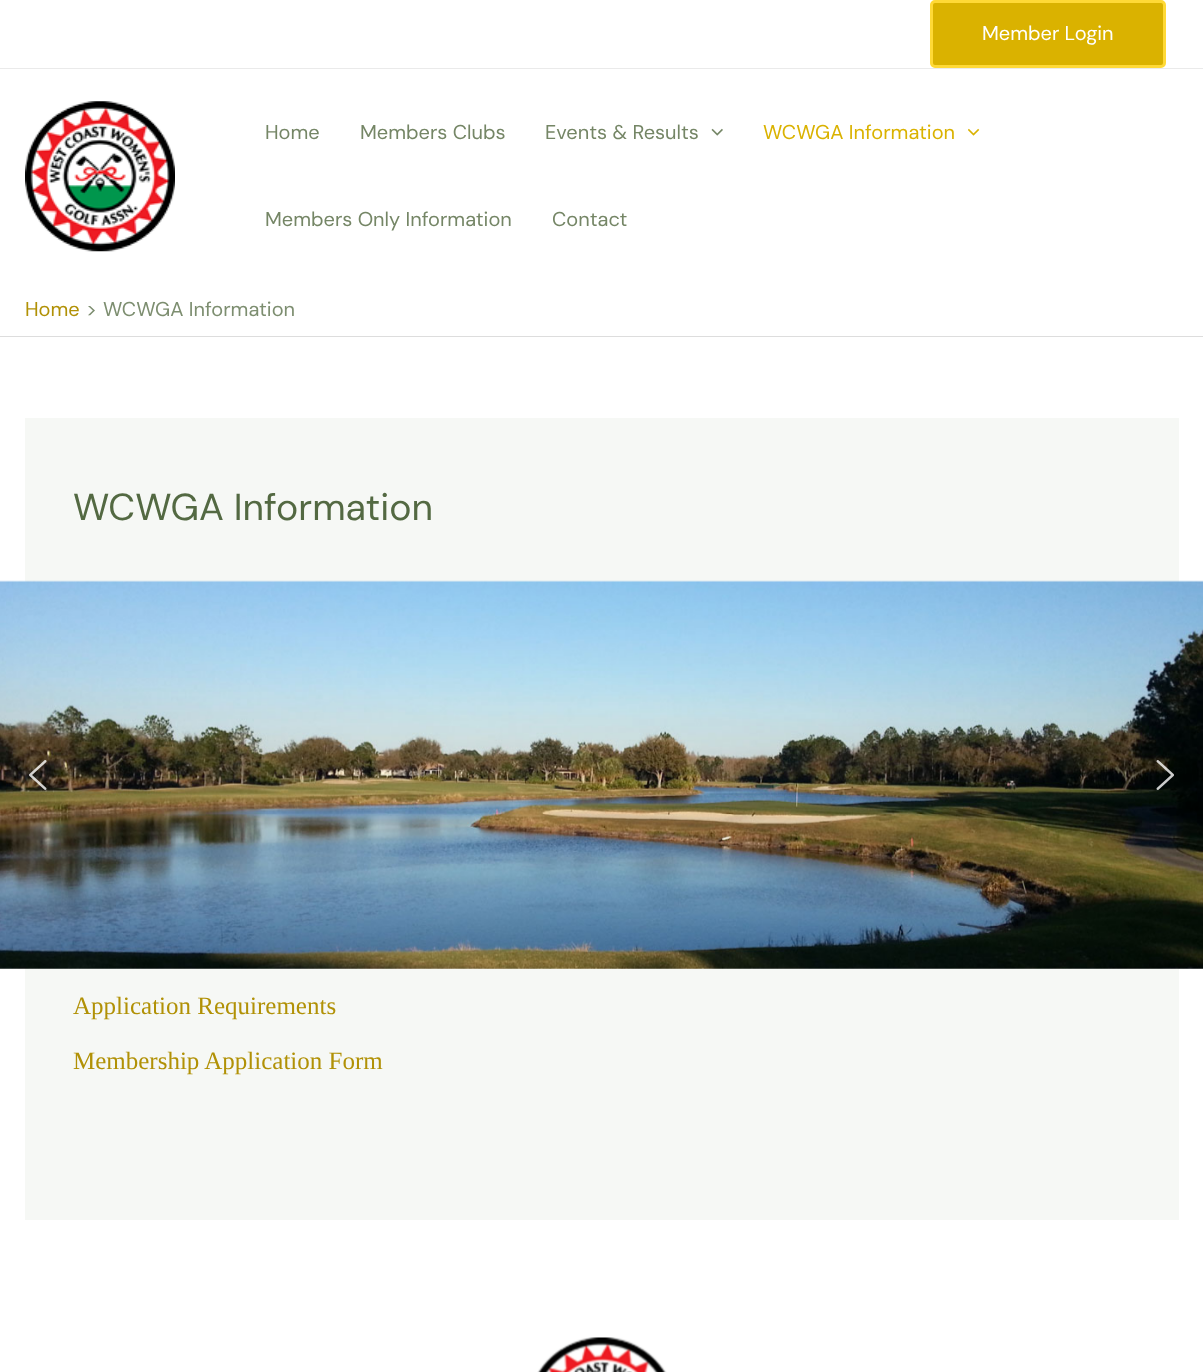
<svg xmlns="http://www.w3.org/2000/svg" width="1203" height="1372">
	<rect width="100%" height="100%" fill="#FFFFFF" />
	<rect x="0" y="68" width="1203" height="1" fill="#EAEAEA" />
	<rect x="931.5" y="1.5" width="233" height="65" rx="3.5" fill="#DAB200" stroke="#FFD936" stroke-width="3" />
	<text x="982" y="40" font-family="DM Sans" font-size="20" fill="#FFFFFF">Member Login</text>
	<image x="25" y="101" width="150" height="151" href="assets/img1.png" />
	<g font-family="DM Sans" font-size="20" fill="#758666">
		<text x="265" y="139">Home</text>
		<text x="360" y="139">Members Clubs</text>
		<text x="545" y="139">Events &amp; Results</text>
	</g>
	<image x="711" y="128" width="12" height="8" href="assets/img2.png" />
	<text x="763" y="139" font-family="DM Sans" font-size="20" fill="#DAB200">WCWGA Information</text>
	<image x="968" y="128" width="12" height="8" href="assets/img3.png" />
	<g font-family="DM Sans" font-size="20" fill="#758666">
		<text x="265" y="226">Members Only Information</text>
		<text x="552" y="226">Contact</text>
	</g>
	<rect x="0" y="336" width="1203" height="1" fill="#DDDDDD" />
	<text x="25" y="316" font-family="DM Sans" font-size="20" fill="#B19106">Home</text>
	<g font-family="DM Sans" font-size="20" fill="#7D8E70">
		<text x="86" y="316">&gt;</text>
		<text x="103" y="316">WCWGA Information</text>
	</g>
	<rect x="25" y="418" width="1154" height="802" fill="#F6F8F5" />
	<text x="73" y="520" font-family="DM Sans" font-size="37.5" fill="#536942">WCWGA Information</text>
	<image x="0" y="580" width="1203" height="389" href="assets/img4.png" />
	<image x="29" y="760" width="18" height="30" href="assets/img5.png" />
	<image x="1156" y="760" width="18" height="30" href="assets/img6.png" />
	<g font-family="Liberation Serif" font-size="25" fill="#B19106">
		<text x="73" y="1014">Application Requirements</text>
		<text x="73" y="1069">Membership Application Form</text>
	</g>
	<image x="537" y="1337" width="130" height="35" href="assets/img7.png" />
</svg>
